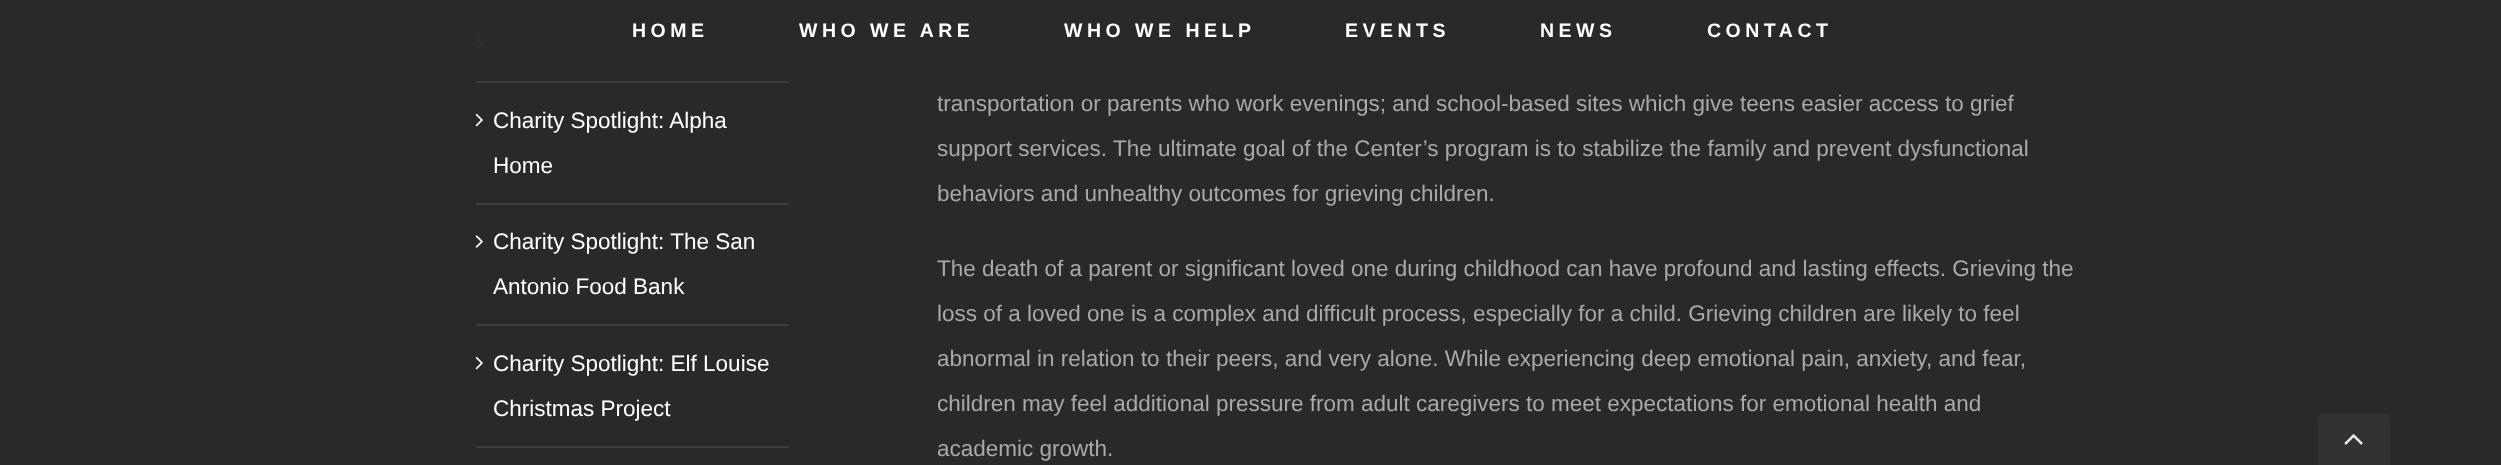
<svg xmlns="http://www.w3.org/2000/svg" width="2501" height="465">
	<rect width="100%" height="100%" fill="#29292A" />
	<image x="475" y="37" width="8" height="13" href="assets/img1.png" />
	<rect x="475" y="37" width="8" height="13" fill="#29292A" fill-opacity="0.97" />
	<g font-family="Liberation Sans" font-size="19.5" font-weight="700" letter-spacing="4.5" fill="#FFFFFF">
		<text x="632" y="37">HOME</text>
		<text x="799" y="37">WHO WE ARE</text>
		<text x="1064" y="37">WHO WE HELP</text>
		<text x="1345" y="37">EVENTS</text>
		<text x="1540" y="37">NEWS</text>
		<text x="1707" y="37">CONTACT</text>
	</g>
	<rect x="476" y="81" width="313" height="2" fill="#3E3E3E" />
	<rect x="476" y="203" width="313" height="2" fill="#3E3E3E" />
	<image x="475" y="113" width="8" height="14" href="assets/img2.png" />
	<g font-family="Liberation Sans" font-size="22.5" fill="#FFFFFF">
		<text x="493" y="128">Charity Spotlight: Alpha</text>
		<text x="493" y="173">Home</text>
	</g>
	<rect x="476" y="324" width="313" height="2" fill="#3E3E3E" />
	<image x="475" y="235" width="8" height="13" href="assets/img1.png" />
	<g font-family="Liberation Sans" font-size="22.5" fill="#FFFFFF">
		<text x="493" y="249">Charity Spotlight: The San</text>
		<text x="493" y="294">Antonio Food Bank</text>
	</g>
	<rect x="476" y="446" width="313" height="2" fill="#3E3E3E" />
	<image x="475" y="356" width="8" height="14" href="assets/img2.png" />
	<g font-family="Liberation Sans" font-size="22.5" fill="#FFFFFF">
		<text x="493" y="371">Charity Spotlight: Elf Louise</text>
		<text x="493" y="416">Christmas Project</text>
	</g>
	<g font-family="Liberation Sans" font-size="22.5" fill="#AAA9A9">
		<text x="937" y="111">transportation or parents who work evenings; and school-based sites which give teens easier access to grief</text>
		<text x="937" y="156">support services. The ultimate goal of the Center’s program is to stabilize the family and prevent dysfunctional</text>
		<text x="937" y="201">behaviors and unhealthy outcomes for grieving children.</text>
		<text x="937" y="276">The death of a parent or significant loved one during childhood can have profound and lasting effects. Grieving the</text>
		<text x="937" y="321">loss of a loved one is a complex and difficult process, especially for a child. Grieving children are likely to feel</text>
		<text x="937" y="366">abnormal in relation to their peers, and very alone. While experiencing deep emotional pain, anxiety, and fear,</text>
		<text x="937" y="411">children may feel additional pressure from adult caregivers to meet expectations for emotional health and</text>
		<text x="937" y="456">academic growth.</text>
	</g>
	<path d="M2327 413H2381C2386 413 2390 417 2390 422V465H2318V422C2318 417 2322 413 2327 413Z" fill="#323232" />
	<image x="2344" y="434" width="19" height="11" href="assets/img3.png" />
</svg>
